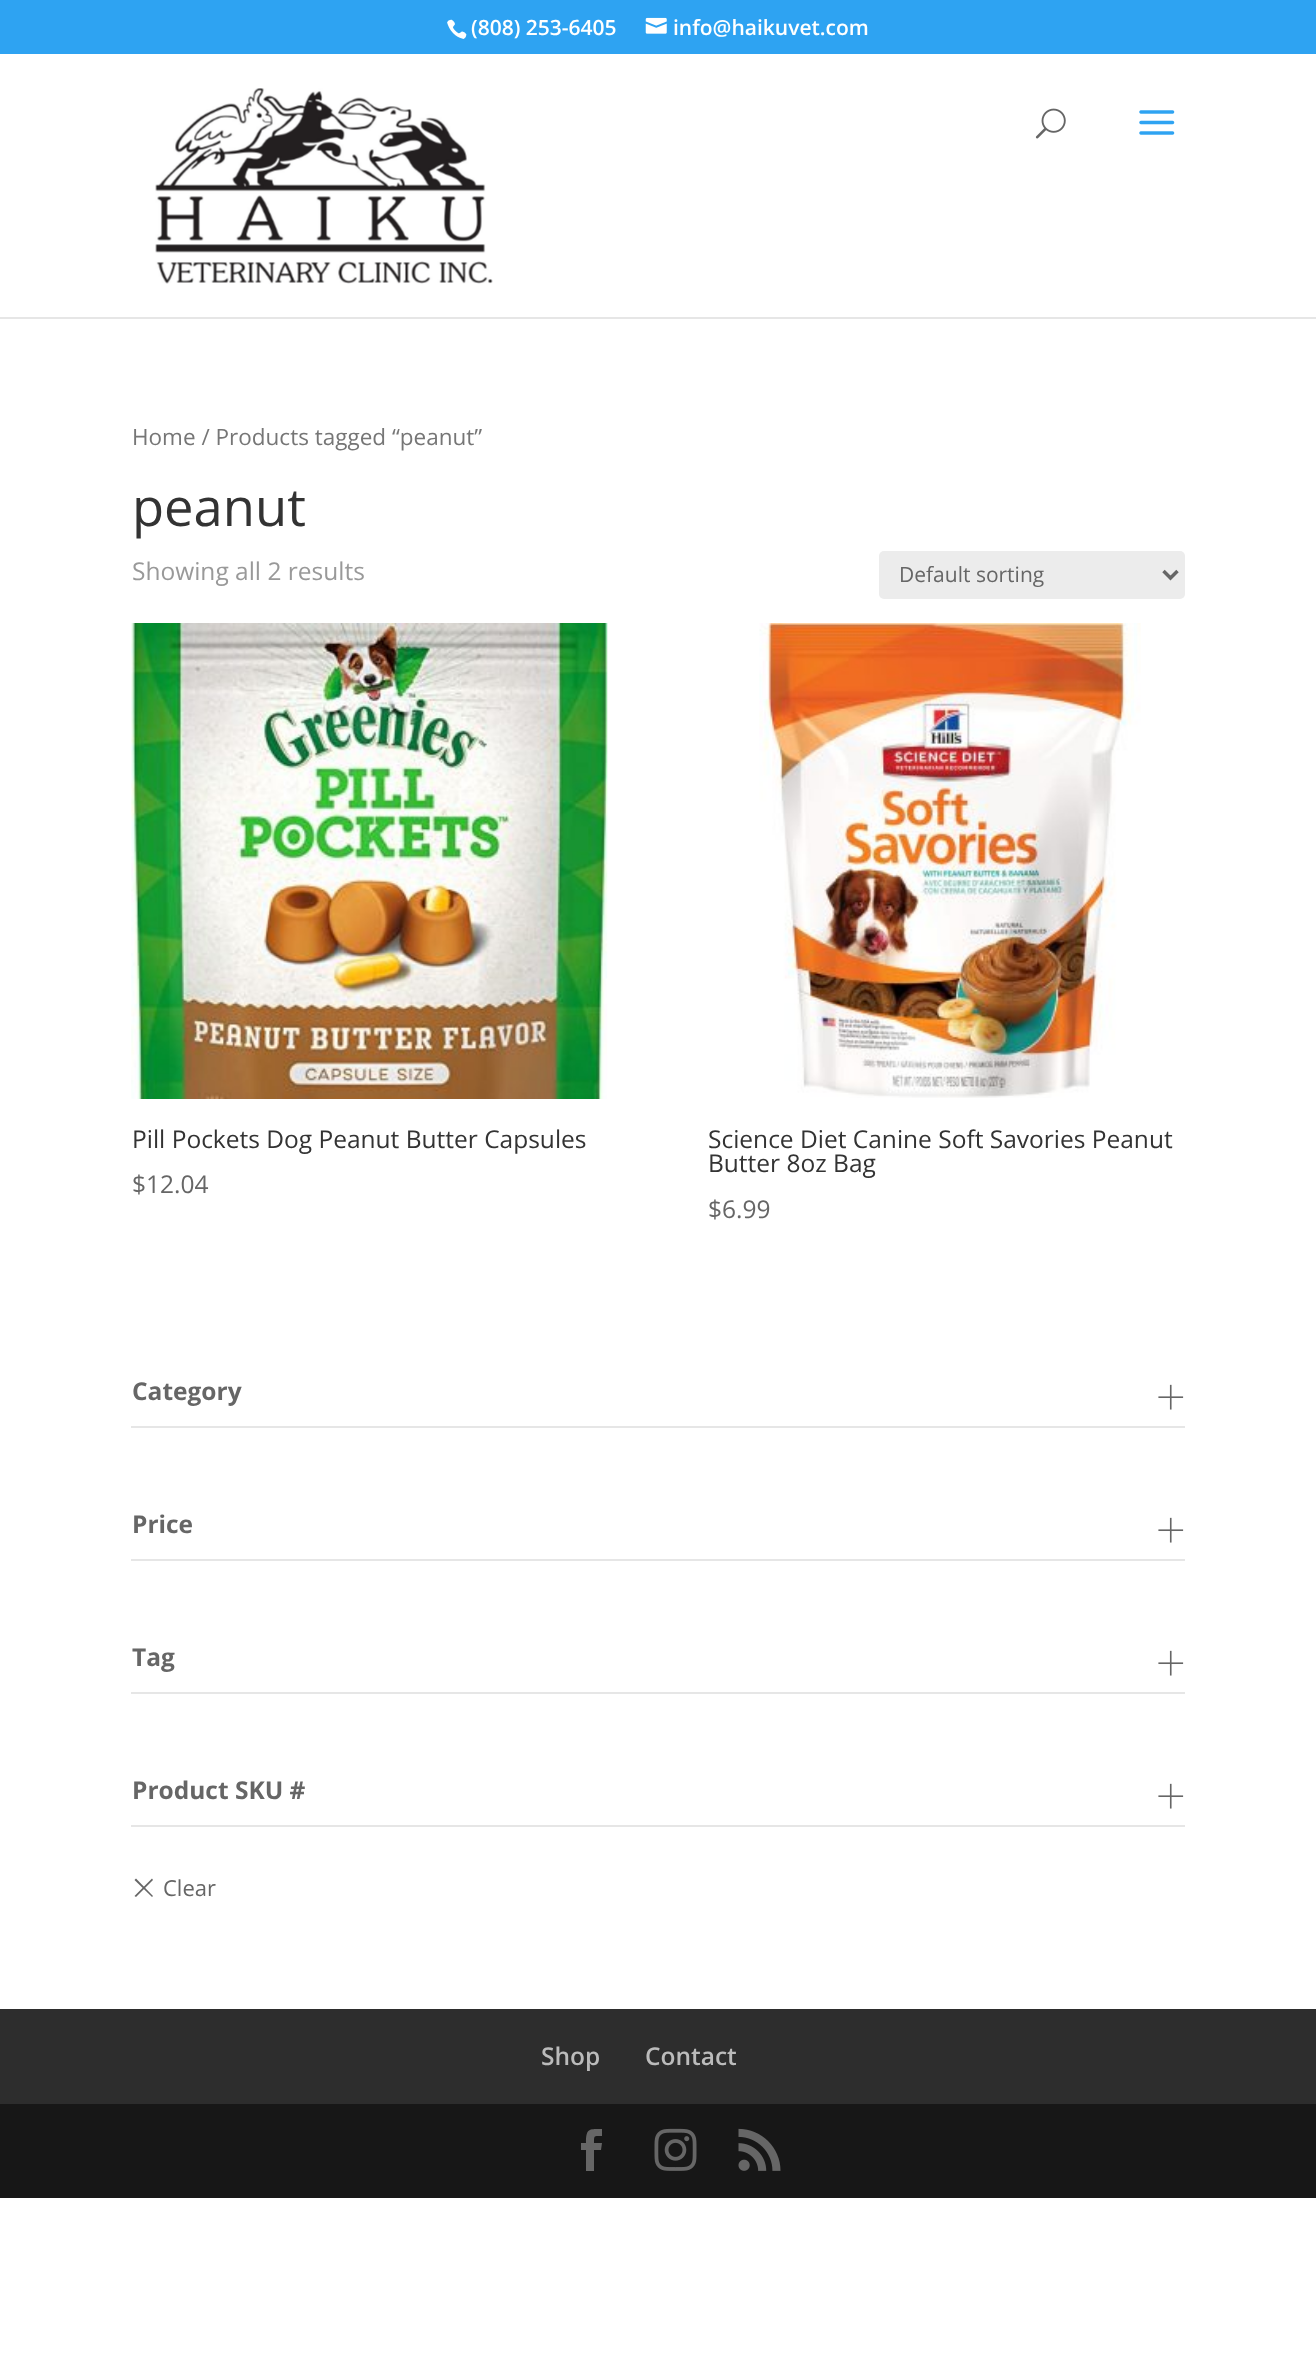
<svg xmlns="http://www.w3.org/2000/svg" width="1316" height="2359">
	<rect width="100%" height="100%" fill="#FFFFFF" />
	<rect x="0" y="0" width="1316" height="54" fill="#2EA3F2" />
	<image x="447" y="19" width="20" height="20" href="assets/img1.png" />
	<text x="471" y="35" font-family="Open Sans" font-size="21" font-weight="600" fill="#FFFFFF">(808) 253-6405</text>
	<image x="645" y="17" width="22" height="17" href="assets/img2.png" />
	<text x="673" y="35" font-family="Open Sans" font-size="21" font-weight="600" fill="#FFFFFF">info@haikuvet.com</text>
	<rect x="0" y="317" width="1316" height="2" fill="#E6E6E6" />
	<image x="155" y="88" width="338" height="196" href="assets/img3.png" />
	<image x="1035" y="108" width="31" height="31" href="assets/img4.png" />
	<image x="1139" y="110" width="36" height="25" href="assets/img5.png" />
	<text x="132" y="445" font-family="Open Sans" font-size="22.5" fill="#767676">Home / Products tagged “peanut”</text>
	<text x="132" y="526" font-family="Open Sans" font-size="52.5" fill="#333333">peanut</text>
	<text x="132" y="580" font-family="Open Sans" font-size="24.5" fill="#999999">Showing all 2 results</text>
	<rect x="879" y="551" width="306" height="48" rx="5" fill="#ECECEC" />
	<path d="M1163.5 571L1170.5 578L1177.5 571" fill="none" stroke="#666666" stroke-width="3.5" />
	<text x="899" y="582" font-family="Open Sans" font-size="21" fill="#666666">Default sorting</text>
	<image x="131" y="623" width="477" height="476" href="assets/img6.png" />
	<text x="132" y="1148" font-family="Open Sans" font-size="24.5" fill="#333333">Pill Pockets Dog Peanut Butter Capsules</text>
	<text x="132" y="1193" font-family="Open Sans" font-size="24.5" fill="#666666">$12.04</text>
	<image x="759" y="623" width="382" height="475" href="assets/img7.png" />
	<g font-family="Open Sans" font-size="24.5" fill="#333333">
		<text x="708" y="1148">Science Diet Canine Soft Savories Peanut</text>
		<text x="708" y="1172">Butter 8oz Bag</text>
	</g>
	<text x="708" y="1218" font-family="Open Sans" font-size="24.5" fill="#666666">$6.99</text>
	<rect x="131" y="1426" width="1054" height="2" fill="#E6E6E6" />
	<text x="132" y="1400" font-family="Open Sans" font-size="24.5" font-weight="700" fill="#666666">Category</text>
	<image x="1158" y="1384" width="26" height="26" href="assets/img8.png" />
	<rect x="131" y="1559" width="1054" height="2" fill="#E6E6E6" />
	<text x="132" y="1533" font-family="Open Sans" font-size="24.5" font-weight="700" fill="#666666">Price</text>
	<image x="1158" y="1517" width="26" height="26" href="assets/img8.png" />
	<rect x="131" y="1692" width="1054" height="2" fill="#E6E6E6" />
	<text x="132" y="1666" font-family="Open Sans" font-size="24.5" font-weight="700" fill="#666666">Tag</text>
	<image x="1158" y="1650" width="26" height="26" href="assets/img8.png" />
	<rect x="131" y="1825" width="1054" height="2" fill="#E6E6E6" />
	<text x="132" y="1799" font-family="Open Sans" font-size="24.5" font-weight="700" fill="#666666">Product SKU #</text>
	<image x="1158" y="1783" width="26" height="26" href="assets/img8.png" />
	<path d="M134.5 1896L152 1878.5L153 1880L136 1897Z" fill="#666666" />
	<path d="M136 1878.5L153 1896L152 1897L134.5 1880Z" fill="#666666" />
	<text x="163" y="1896" font-family="Open Sans" font-size="22" fill="#666666">Clear</text>
	<rect x="0" y="2009" width="1316" height="95" fill="#2D2D2D" />
	<g font-family="Open Sans" font-size="24.5" font-weight="600" fill="#BBBBBB">
		<text x="541" y="2065">Shop</text>
		<text x="645" y="2065">Contact</text>
	</g>
	<rect x="0" y="2104" width="1316" height="94" fill="#171717" />
	<path d="M586 2171H594V2150H601L602 2143H594C594 2135 594 2136 602 2136V2129C589 2129 586 2128 586 2143H581V2150H586Z" fill="#666666" />
	<image x="654" y="2128" width="43" height="43" href="assets/img9.png" />
	<image x="738" y="2128" width="43" height="43" href="assets/img10.png" />
</svg>
